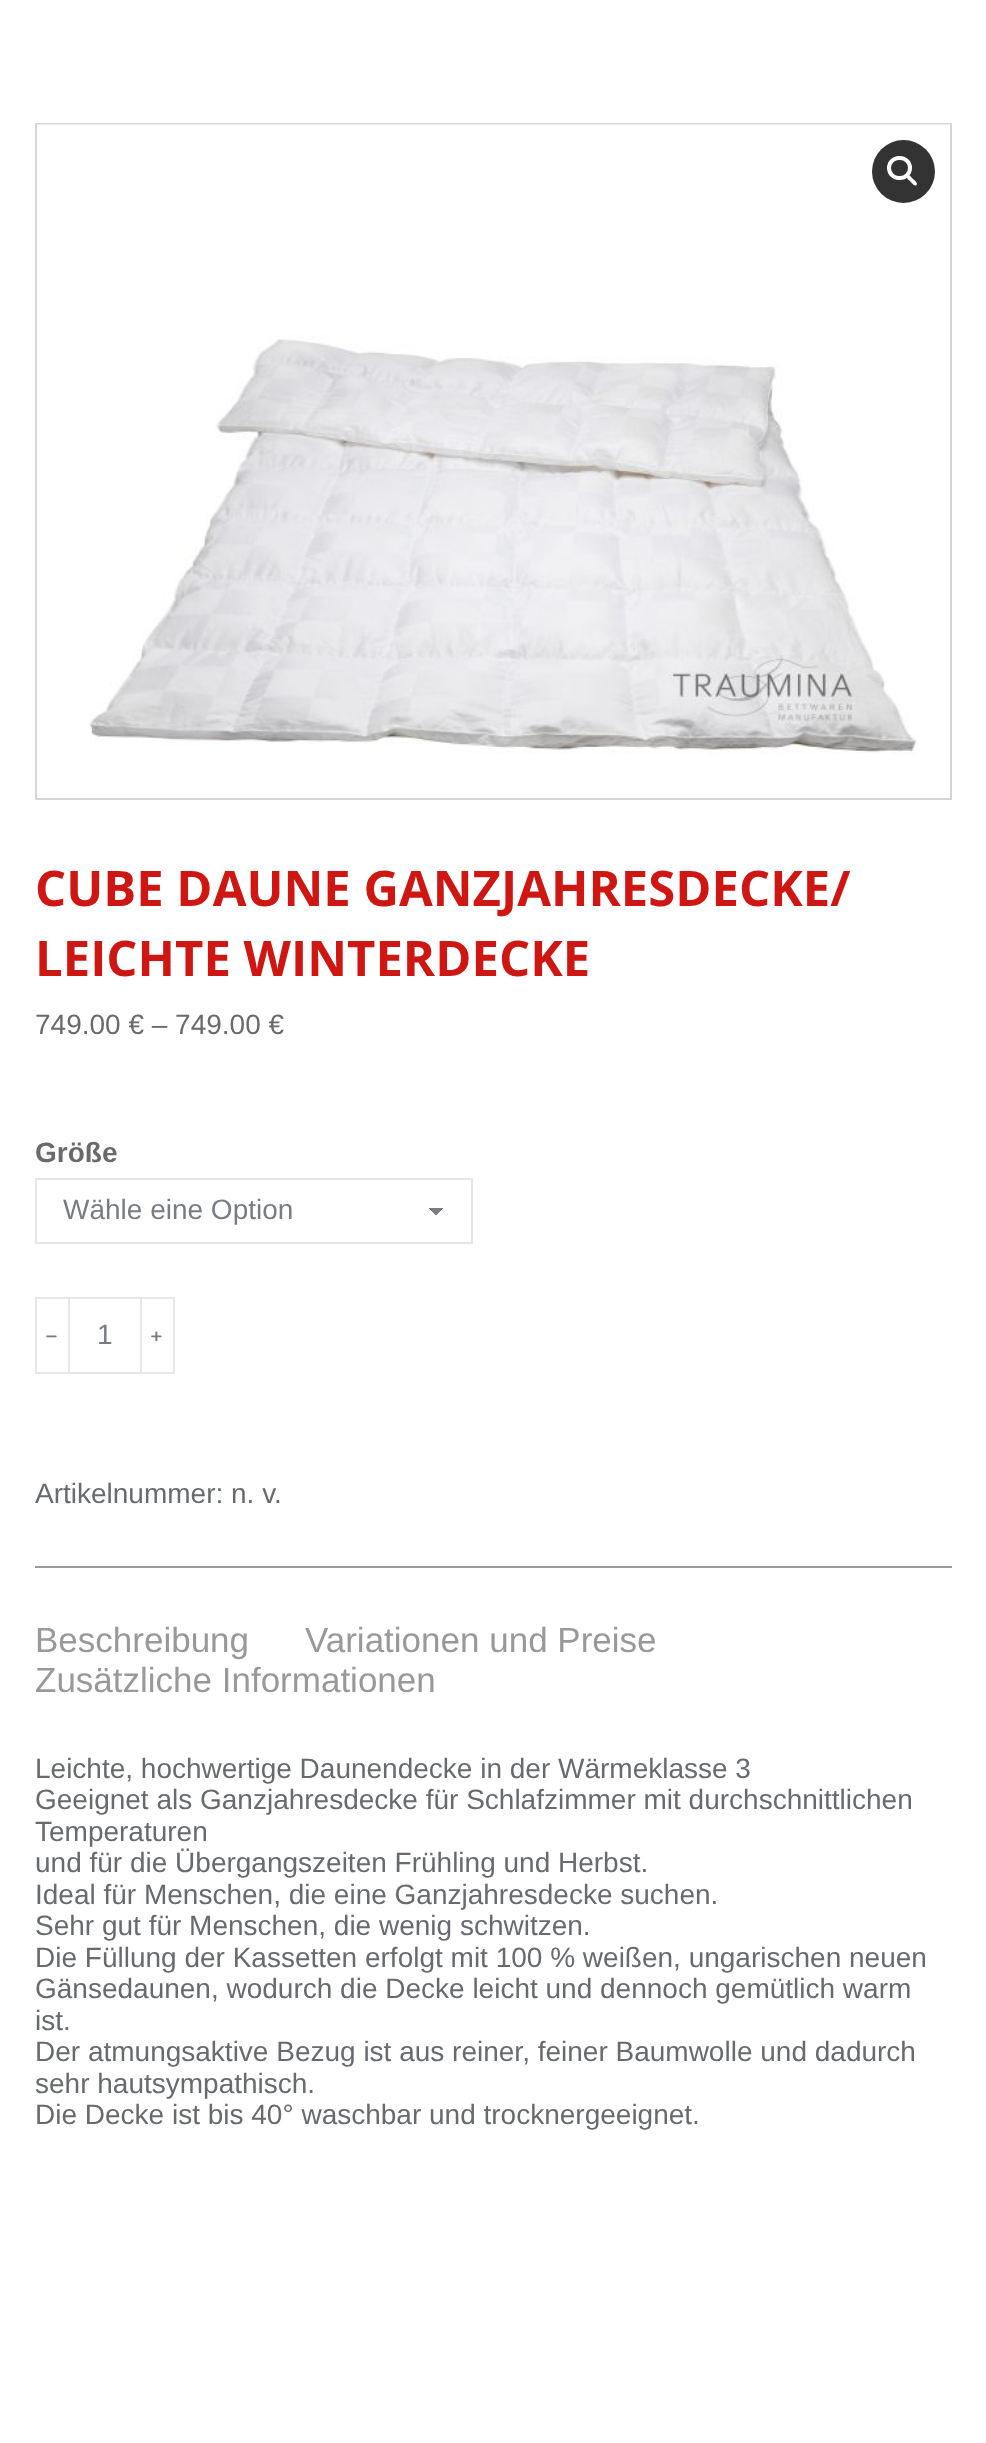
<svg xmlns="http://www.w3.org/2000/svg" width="986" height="2443">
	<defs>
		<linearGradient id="g1" gradientUnits="userSpaceOnUse" x1="436" y1="1207" x2="445" y2="1215"><stop offset="0.5" stop-color="#787D85" /><stop offset="0.5" stop-color="#FDFDFD" /></linearGradient>
		<linearGradient id="g2" gradientUnits="userSpaceOnUse" x1="427" y1="1215" x2="436" y2="1207"><stop offset="0.5" stop-color="#FDFDFD" /><stop offset="0.5" stop-color="#787D85" /></linearGradient>
	</defs>
	<rect width="100%" height="100%" fill="#FFFFFF" />
	<rect x="36" y="124" width="915" height="675" fill="none" stroke="#D5D5D7" stroke-width="2" />
	<image x="37" y="124" width="913" height="631" href="assets/img1.png" />
	<circle cx="903.5" cy="171.5" r="31.5" fill="#333333" />
	<rect x="889" y="158" width="21" height="20" rx="10" fill="none" stroke="#FFFFFF" stroke-width="4" />
	<path d="M907 175.5C909 173.5 912 178 913 179C914 180 918.5 183 916.5 185C914.5 187 911.5 182.5 910.5 181.5C909.5 180.5 905 177.5 907 175.5Z" fill="#FFFFFF" />
	<g font-family="Open Sans" font-size="49" font-weight="700" fill="#CE1713">
		<text x="35" y="906">CUBE DAUNE GANZJAHRESDECKE/</text>
		<text x="35" y="976">LEICHTE WINTERDECKE</text>
	</g>
	<text x="35" y="1034" font-family="Liberation Sans" font-size="28" fill="#676B6D">749.00 € – 749.00 €</text>
	<text x="35" y="1162" font-family="Liberation Sans" font-size="28" font-weight="700" fill="#676B6D">Größe</text>
	<rect x="436" y="1208" width="9" height="7" fill="url(#g1)" />
	<rect x="427" y="1208" width="9" height="7" fill="url(#g2)" />
	<rect x="36" y="1179" width="436" height="64" fill="none" stroke="#E5E6E8" stroke-width="2" />
	<text x="63" y="1219" font-family="Liberation Sans" font-size="28" fill="#787D85">Wähle eine Option</text>
	<rect x="36" y="1298" width="33" height="75" fill="none" stroke="#E6E7E9" stroke-width="2" />
	<text x="40" y="1344" font-family="WenQuanYi Zen Hei" font-size="24" font-weight="700" fill="#787D85">﹣</text>
	<rect x="70" y="1297" width="70" height="2" fill="#E5E6E8" />
	<rect x="70" y="1372" width="70" height="2" fill="#E5E6E8" />
	<text x="97" y="1344" font-family="Liberation Sans" font-size="28" fill="#787D85">1</text>
	<rect x="141" y="1298" width="33" height="75" fill="none" stroke="#E6E7E9" stroke-width="2" />
	<text x="145" y="1344" font-family="WenQuanYi Zen Hei" font-size="24" font-weight="700" fill="#787D85">﹢</text>
	<text x="35" y="1503" font-family="Liberation Sans" font-size="28" fill="#676B6D">Artikelnummer: n. v.</text>
	<rect x="35" y="1566" width="917" height="2" fill="#999999" />
	<g font-family="Liberation Sans" font-size="35" fill="#999999">
		<text x="35" y="1652">Beschreibung</text>
		<text x="305" y="1652">Variationen und Preise</text>
		<text x="35" y="1692">Zusätzliche Informationen</text>
	</g>
	<g font-family="Liberation Sans" font-size="28" fill="#676B6D">
		<text x="35" y="1778">Leichte, hochwertige Daunendecke in der Wärmeklasse 3</text>
		<text x="35" y="1809">Geeignet als Ganzjahresdecke für Schlafzimmer mit durchschnittlichen</text>
		<text x="35" y="1841">Temperaturen</text>
		<text x="35" y="1872">und für die Übergangszeiten Frühling und Herbst.</text>
		<text x="35" y="1904">Ideal für Menschen, die eine Ganzjahresdecke suchen.</text>
		<text x="35" y="1935">Sehr gut für Menschen, die wenig schwitzen.</text>
		<text x="35" y="1967">Die Füllung der Kassetten erfolgt mit 100 % weißen, ungarischen neuen</text>
		<text x="35" y="1998">Gänsedaunen, wodurch die Decke leicht und dennoch gemütlich warm</text>
		<text x="35" y="2030">ist.</text>
		<text x="35" y="2061">Der atmungsaktive Bezug ist aus reiner, feiner Baumwolle und dadurch</text>
		<text x="35" y="2093">sehr hautsympathisch.</text>
		<text x="35" y="2124">Die Decke ist bis 40° waschbar und trocknergeeignet.</text>
	</g>
</svg>
